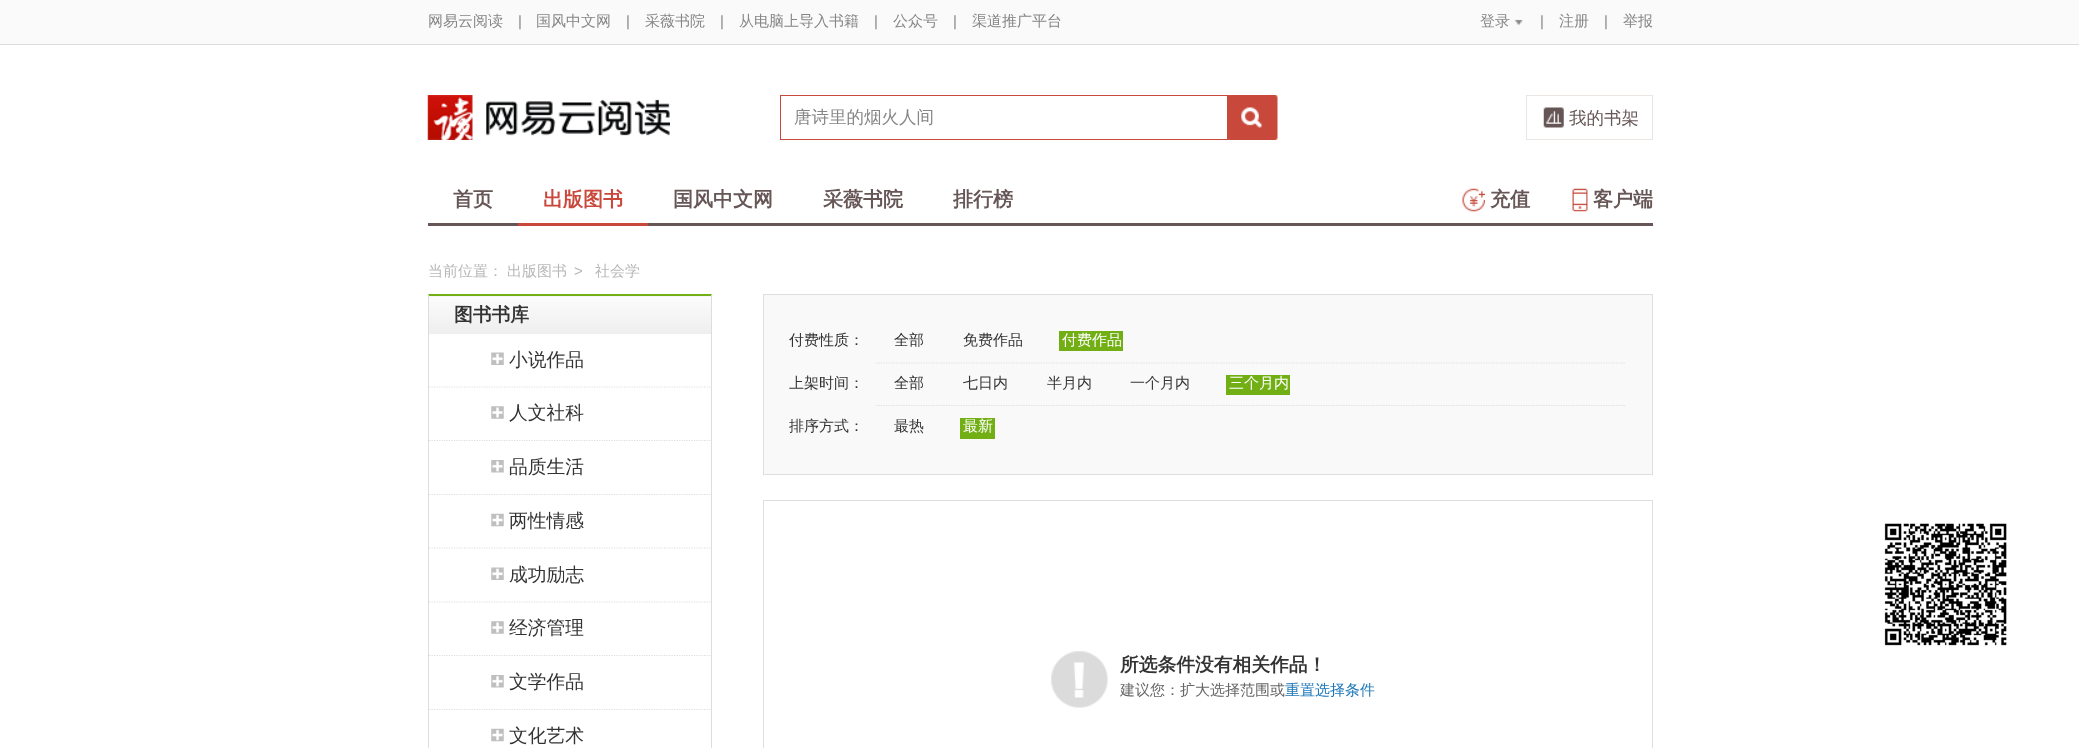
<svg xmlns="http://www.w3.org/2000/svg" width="2079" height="748">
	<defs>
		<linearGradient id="g1" gradientUnits="userSpaceOnUse" x1="429" y1="296" x2="429" y2="334"><stop offset="0" stop-color="#FCFCFC" /><stop offset="1" stop-color="#EEEEEE" /></linearGradient>
	</defs>
	<rect width="100%" height="100%" fill="#FFFFFF" />
	<rect x="0" y="0" width="2079" height="44" fill="#FAFAFA" />
	<rect x="0" y="44" width="2079" height="1" fill="#DCDCDC" />
	<text x="428" y="26" font-family="WenQuanYi Zen Hei" font-size="15" font-weight="500" fill="#868686">网易云阅读</text>
	<text x="518" y="26" font-family="Liberation Sans" font-size="15" fill="#868686">|</text>
	<text x="536" y="26" font-family="WenQuanYi Zen Hei" font-size="15" font-weight="500" fill="#868686">国风中文网</text>
	<text x="626" y="26" font-family="Liberation Sans" font-size="15" fill="#868686">|</text>
	<text x="645" y="26" font-family="WenQuanYi Zen Hei" font-size="15" font-weight="500" fill="#868686">采薇书院</text>
	<text x="720" y="26" font-family="Liberation Sans" font-size="15" fill="#868686">|</text>
	<text x="739" y="26" font-family="WenQuanYi Zen Hei" font-size="15" font-weight="500" fill="#868686">从电脑上导入书籍</text>
	<text x="874" y="26" font-family="Liberation Sans" font-size="15" fill="#868686">|</text>
	<text x="893" y="26" font-family="WenQuanYi Zen Hei" font-size="15" font-weight="500" fill="#868686">公众号</text>
	<text x="953" y="26" font-family="Liberation Sans" font-size="15" fill="#868686">|</text>
	<g font-family="WenQuanYi Zen Hei" font-size="15" font-weight="500" fill="#868686">
		<text x="972" y="26">渠道推广平台</text>
		<text x="1480" y="26">登录</text>
	</g>
	<image x="1515" y="19" width="8" height="7" href="assets/img1.png" />
	<text x="1540" y="26" font-family="Liberation Sans" font-size="15" fill="#868686">|</text>
	<text x="1559" y="26" font-family="WenQuanYi Zen Hei" font-size="15" font-weight="500" fill="#868686">注册</text>
	<text x="1604" y="26" font-family="Liberation Sans" font-size="15" fill="#868686">|</text>
	<text x="1623" y="26" font-family="WenQuanYi Zen Hei" font-size="15" font-weight="500" fill="#868686">举报</text>
	<image x="427" y="95" width="243" height="45" href="assets/img2.png" />
	<rect x="780.5" y="95.5" width="447" height="44" fill="none" stroke="#C9483C" />
	<text x="794" y="123" font-family="WenQuanYi Zen Hei" font-size="17.5" font-weight="500" fill="#868686">唐诗里的烟火人间</text>
	<image x="1228" y="95" width="50" height="45" href="assets/img3.png" />
	<image x="1543" y="107" width="21" height="21" href="assets/img4.png" />
	<rect x="1526.5" y="95.5" width="126" height="44" fill="none" stroke="#EBE6E1" />
	<text x="1569" y="124" font-family="WenQuanYi Zen Hei" font-size="17.5" font-weight="500" fill="#665656">我的书架</text>
	<rect x="428" y="223" width="1225" height="3" fill="#665656" />
	<text x="453" y="206" font-family="WenQuanYi Zen Hei" font-size="20" font-weight="700" fill="#665656">首页</text>
	<rect x="518" y="223" width="130" height="3" fill="#C9483C" />
	<text x="543" y="206" font-family="WenQuanYi Zen Hei" font-size="20" font-weight="700" fill="#C9483C">出版图书</text>
	<g font-family="WenQuanYi Zen Hei" font-size="20" font-weight="700" fill="#665656">
		<text x="673" y="206">国风中文网</text>
		<text x="823" y="206">采薇书院</text>
		<text x="953" y="206">排行榜</text>
	</g>
	<image x="1462" y="188" width="23" height="24" href="assets/img5.png" />
	<text x="1490" y="206" font-family="WenQuanYi Zen Hei" font-size="20" font-weight="700" fill="#665656">充值</text>
	<image x="1572" y="188" width="16" height="24" href="assets/img6.png" />
	<text x="1593" y="206" font-family="WenQuanYi Zen Hei" font-size="20" font-weight="700" fill="#665656">客户端</text>
	<g font-family="WenQuanYi Zen Hei" font-size="15" font-weight="500" fill="#B8B8B8">
		<text x="428" y="276">当前位置：</text>
		<text x="507" y="276">出版图书</text>
	</g>
	<text x="574" y="276" font-family="Liberation Sans" font-size="15" fill="#B8B8B8">&gt;</text>
	<text x="595" y="276" font-family="WenQuanYi Zen Hei" font-size="15" font-weight="500" fill="#B8B8B8">社会学</text>
	<path d="M428 294H712L711 296H429Z" fill="#71AF14" />
	<path d="M712 294V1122L711 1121V296Z" fill="#DCDDDD" />
	<path d="M428 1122V294L429 296V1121Z" fill="#DCDDDD" />
	<rect x="429" y="297" width="282" height="37" fill="url(#g1)" />
	<rect x="429" y="296" width="282" height="1" fill="#F6F6F6" />
	<text x="454" y="321" font-family="WenQuanYi Zen Hei" font-size="18.75" font-weight="700" fill="#333333">图书书库</text>
	<path d="M429 387H711" fill="none" stroke="#DEDEDE" stroke-width="1.2" stroke-dasharray="1.25 1.25" />
	<image x="491" y="352" width="13" height="13" href="assets/img7.png" />
	<text x="509" y="366" font-family="WenQuanYi Zen Hei" font-size="18.75" font-weight="500" fill="#333333">小说作品</text>
	<path d="M429 440.5H711" fill="none" stroke="#DEDEDE" stroke-width="1.2" stroke-dasharray="1.25 1.25" />
	<rect x="429" y="439" width="282" height="1" fill="#FFFFFF" />
	<image x="491" y="406" width="13" height="13" href="assets/img8.png" />
	<text x="509" y="419" font-family="WenQuanYi Zen Hei" font-size="18.75" font-weight="500" fill="#333333">人文社科</text>
	<path d="M429 494.5H711" fill="none" stroke="#DEDEDE" stroke-width="1.2" stroke-dasharray="1.25 1.25" />
	<rect x="429" y="441" width="282" height="1" fill="#FFFFFF" />
	<rect x="429" y="493" width="282" height="1" fill="#FFFFFF" />
	<image x="491" y="460" width="13" height="13" href="assets/img9.png" />
	<text x="509" y="473" font-family="WenQuanYi Zen Hei" font-size="18.75" font-weight="500" fill="#333333">品质生活</text>
	<path d="M429 548H711" fill="none" stroke="#DEDEDE" stroke-width="1.2" stroke-dasharray="1.25 1.25" />
	<rect x="429" y="495" width="282" height="1" fill="#FFFFFF" />
	<image x="491" y="513" width="13" height="14" href="assets/img10.png" />
	<text x="509" y="527" font-family="WenQuanYi Zen Hei" font-size="18.75" font-weight="500" fill="#333333">两性情感</text>
	<path d="M429 602H711" fill="none" stroke="#DEDEDE" stroke-width="1.2" stroke-dasharray="1.25 1.25" />
	<image x="491" y="567" width="13" height="13" href="assets/img7.png" />
	<text x="509" y="581" font-family="WenQuanYi Zen Hei" font-size="18.75" font-weight="500" fill="#333333">成功励志</text>
	<path d="M429 655.5H711" fill="none" stroke="#DEDEDE" stroke-width="1.2" stroke-dasharray="1.25 1.25" />
	<rect x="429" y="654" width="282" height="1" fill="#FFFFFF" />
	<image x="491" y="621" width="13" height="13" href="assets/img8.png" />
	<text x="509" y="634" font-family="WenQuanYi Zen Hei" font-size="18.75" font-weight="500" fill="#333333">经济管理</text>
	<path d="M429 709.5H711" fill="none" stroke="#DEDEDE" stroke-width="1.2" stroke-dasharray="1.25 1.25" />
	<rect x="429" y="656" width="282" height="1" fill="#FFFFFF" />
	<rect x="429" y="708" width="282" height="1" fill="#FFFFFF" />
	<image x="491" y="675" width="13" height="13" href="assets/img9.png" />
	<text x="509" y="688" font-family="WenQuanYi Zen Hei" font-size="18.75" font-weight="500" fill="#333333">文学作品</text>
	<rect x="429" y="710" width="282" height="1" fill="#FFFFFF" />
	<image x="491" y="728" width="13" height="14" href="assets/img10.png" />
	<text x="509" y="742" font-family="WenQuanYi Zen Hei" font-size="18.75" font-weight="500" fill="#333333">文化艺术</text>
	<rect x="763.5" y="294.5" width="889" height="180" fill="#F9F9F9" stroke="#DEDEDE" />
	<text x="789" y="345" font-family="WenQuanYi Zen Hei" font-size="15" font-weight="500" fill="#333333">付费性质：</text>
	<path d="M876 363H1626" fill="none" stroke="#DEDEDE" stroke-width="1.2" stroke-dasharray="1.25 1.25" />
	<g font-family="WenQuanYi Zen Hei" font-size="15" font-weight="500" fill="#333333">
		<text x="894" y="345">全部</text>
		<text x="963" y="345">免费作品</text>
	</g>
	<rect x="1059" y="331" width="64" height="20" fill="#71AF14" />
	<text x="1062" y="345" font-family="WenQuanYi Zen Hei" font-size="15" font-weight="500" fill="#FFFFFF">付费作品</text>
	<text x="789" y="388" font-family="WenQuanYi Zen Hei" font-size="15" font-weight="500" fill="#333333">上架时间：</text>
	<path d="M876 405.5H1626" fill="none" stroke="#DEDEDE" stroke-width="1.2" stroke-dasharray="1.25 1.25" />
	<g font-family="WenQuanYi Zen Hei" font-size="15" font-weight="500" fill="#333333">
		<text x="894" y="388">全部</text>
		<text x="963" y="388">七日内</text>
		<text x="1047" y="388">半月内</text>
		<text x="1130" y="388">一个月内</text>
	</g>
	<rect x="1226" y="375" width="64" height="20" fill="#71AF14" />
	<text x="1229" y="388" font-family="WenQuanYi Zen Hei" font-size="15" font-weight="500" fill="#FFFFFF">三个月内</text>
	<g font-family="WenQuanYi Zen Hei" font-size="15" font-weight="500" fill="#333333">
		<text x="789" y="431">排序方式：</text>
		<text x="894" y="431">最热</text>
	</g>
	<rect x="960" y="418" width="35" height="21" fill="#71AF14" />
	<text x="963" y="431" font-family="WenQuanYi Zen Hei" font-size="15" font-weight="500" fill="#FFFFFF">最新</text>
	<rect x="763.5" y="500.5" width="889" height="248" fill="none" stroke="#DEDEDE" />
	<image x="1051" y="651" width="57" height="57" href="assets/img11.png" />
	<text x="1120" y="671" font-family="WenQuanYi Zen Hei" font-size="18.75" font-weight="700" fill="#333333">所选条件没有相关作品！</text>
	<text x="1120" y="695" font-family="WenQuanYi Zen Hei" font-size="15" font-weight="500" fill="#666666">建议您：扩大选择范围或</text>
	<text x="1285" y="695" font-family="WenQuanYi Zen Hei" font-size="15" font-weight="500" fill="#1C77BA">重置选择条件</text>
	<image x="1884" y="523" width="123" height="123" href="assets/img12.png" />
</svg>
